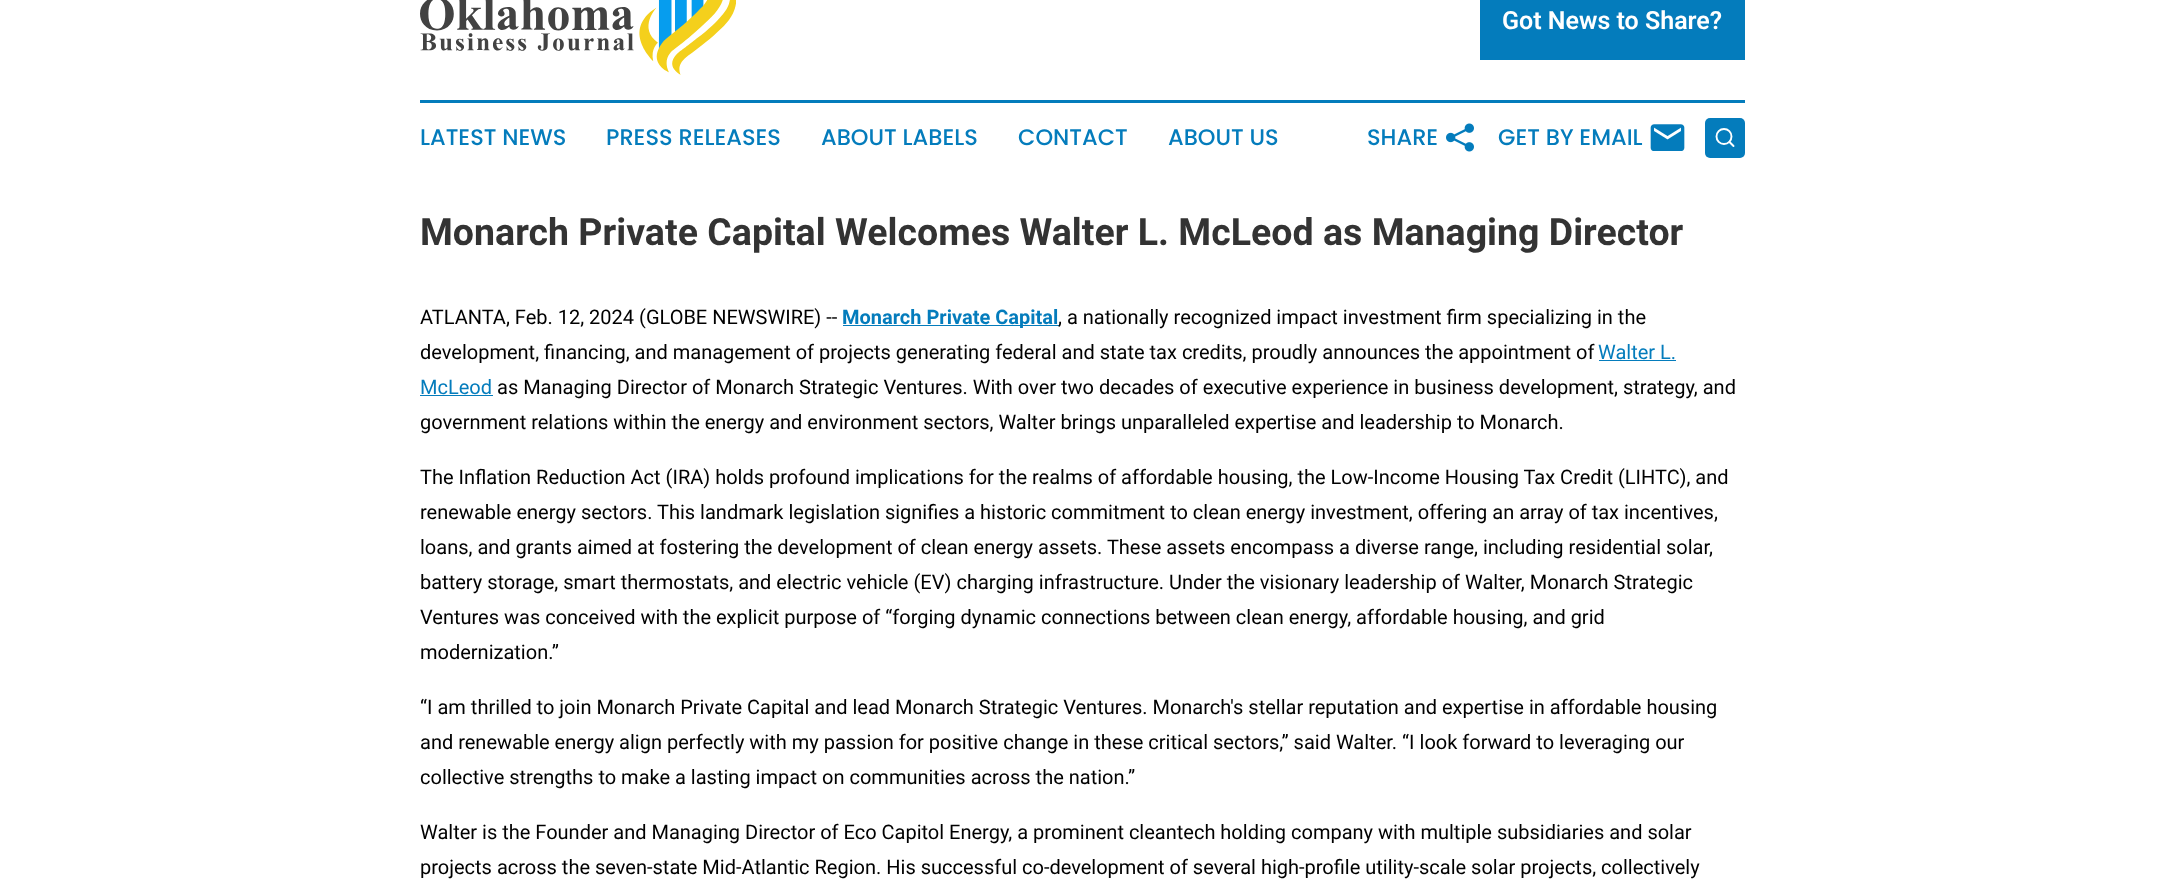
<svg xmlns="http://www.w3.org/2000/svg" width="2165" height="881">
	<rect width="100%" height="100%" fill="#FFFFFF" />
	<image x="420" y="0" width="316" height="75" href="assets/img1.png" />
	<rect x="1480" y="0" width="265" height="60" fill="#047CBC" />
	<text x="1502" y="29" font-family="Roboto" font-size="25" font-weight="600" fill="#FFFFFF">Got News to Share?</text>
	<rect x="420" y="100" width="1325" height="3" fill="#047CBC" />
	<g font-family="Poppins" font-size="22.5" font-weight="500" fill="#047CBC">
		<text x="420" y="145">LATEST NEWS</text>
		<text x="606" y="145">PRESS RELEASES</text>
		<text x="821" y="145">ABOUT LABELS</text>
		<text x="1018" y="145">CONTACT</text>
		<text x="1168" y="145">ABOUT US</text>
		<text x="1367" y="145">SHARE</text>
	</g>
	<image x="1446" y="123" width="28" height="29" href="assets/img2.png" />
	<text x="1498" y="145" font-family="Poppins" font-size="22.5" font-weight="500" fill="#047CBC">GET BY EMAIL</text>
	<image x="1650" y="124" width="35" height="27" href="assets/img3.png" />
	<rect x="1705" y="118" width="40" height="40" rx="5" fill="#047CBC" />
	<circle cx="1724" cy="136.5" r="7.5" fill="none" stroke="#FFFFFF" stroke-width="1.9" />
	<path d="M1733.5 146L1729.5 142" fill="none" stroke="#FFFFFF" stroke-width="1.9" stroke-linecap="round" stroke-linejoin="round" />
	<text x="420" y="245" font-family="Roboto" font-size="37.5" font-weight="700" fill="#333333">Monarch Private Capital Welcomes Walter L. McLeod as Managing Director</text>
	<text x="420" y="324" font-family="Roboto" font-size="20" fill="#000000">ATLANTA, Feb. 12, 2024 (GLOBE NEWSWIRE) --</text>
	<rect x="843" y="325" width="216" height="1" fill="#047CBC" />
	<text x="842" y="324" font-family="Roboto" font-size="20" font-weight="700" fill="#047CBC">Monarch Private Capital</text>
	<g font-family="Roboto" font-size="20" fill="#000000">
		<text x="1058" y="324">, a nationally recognized impact investment firm specializing in the</text>
		<text x="420" y="359">development, financing, and management of projects generating federal and state tax credits, proudly announces the appointment of</text>
	</g>
	<text x="1598" y="359" font-family="Roboto" font-size="20" fill="#047CBC">Walter L.</text>
	<rect x="1599" y="360" width="77" height="1" fill="#047CBC" />
	<text x="420" y="394" font-family="Roboto" font-size="20" fill="#047CBC">McLeod</text>
	<rect x="420" y="395" width="73" height="1" fill="#047CBC" />
	<g font-family="Roboto" font-size="20" fill="#000000">
		<text x="497" y="394">as Managing Director of Monarch Strategic Ventures. With over two decades of executive experience in business development, strategy, and</text>
		<text x="420" y="429">government relations within the energy and environment sectors, Walter brings unparalleled expertise and leadership to Monarch.</text>
		<text x="420" y="484">The Inflation Reduction Act (IRA) holds profound implications for the realms of affordable housing, the Low-Income Housing Tax Credit (LIHTC), and</text>
		<text x="420" y="519">renewable energy sectors. This landmark legislation signifies a historic commitment to clean energy investment, offering an array of tax incentives,</text>
		<text x="420" y="554">loans, and grants aimed at fostering the development of clean energy assets. These assets encompass a diverse range, including residential solar,</text>
		<text x="420" y="589">battery storage, smart thermostats, and electric vehicle (EV) charging infrastructure. Under the visionary leadership of Walter, Monarch Strategic</text>
		<text x="420" y="624">Ventures was conceived with the explicit purpose of “forging dynamic connections between clean energy, affordable housing, and grid</text>
		<text x="420" y="659">modernization.”</text>
		<text x="420" y="714">“I am thrilled to join Monarch Private Capital and lead Monarch Strategic Ventures. Monarch's stellar reputation and expertise in affordable housing</text>
		<text x="420" y="749">and renewable energy align perfectly with my passion for positive change in these critical sectors,” said Walter. “I look forward to leveraging our</text>
		<text x="420" y="784">collective strengths to make a lasting impact on communities across the nation.”</text>
		<text x="420" y="839">Walter is the Founder and Managing Director of Eco Capitol Energy, a prominent cleantech holding company with multiple subsidiaries and solar</text>
		<text x="420" y="874">projects across the seven-state Mid-Atlantic Region. His successful co-development of several high-profile utility-scale solar projects, collectively</text>
	</g>
</svg>
